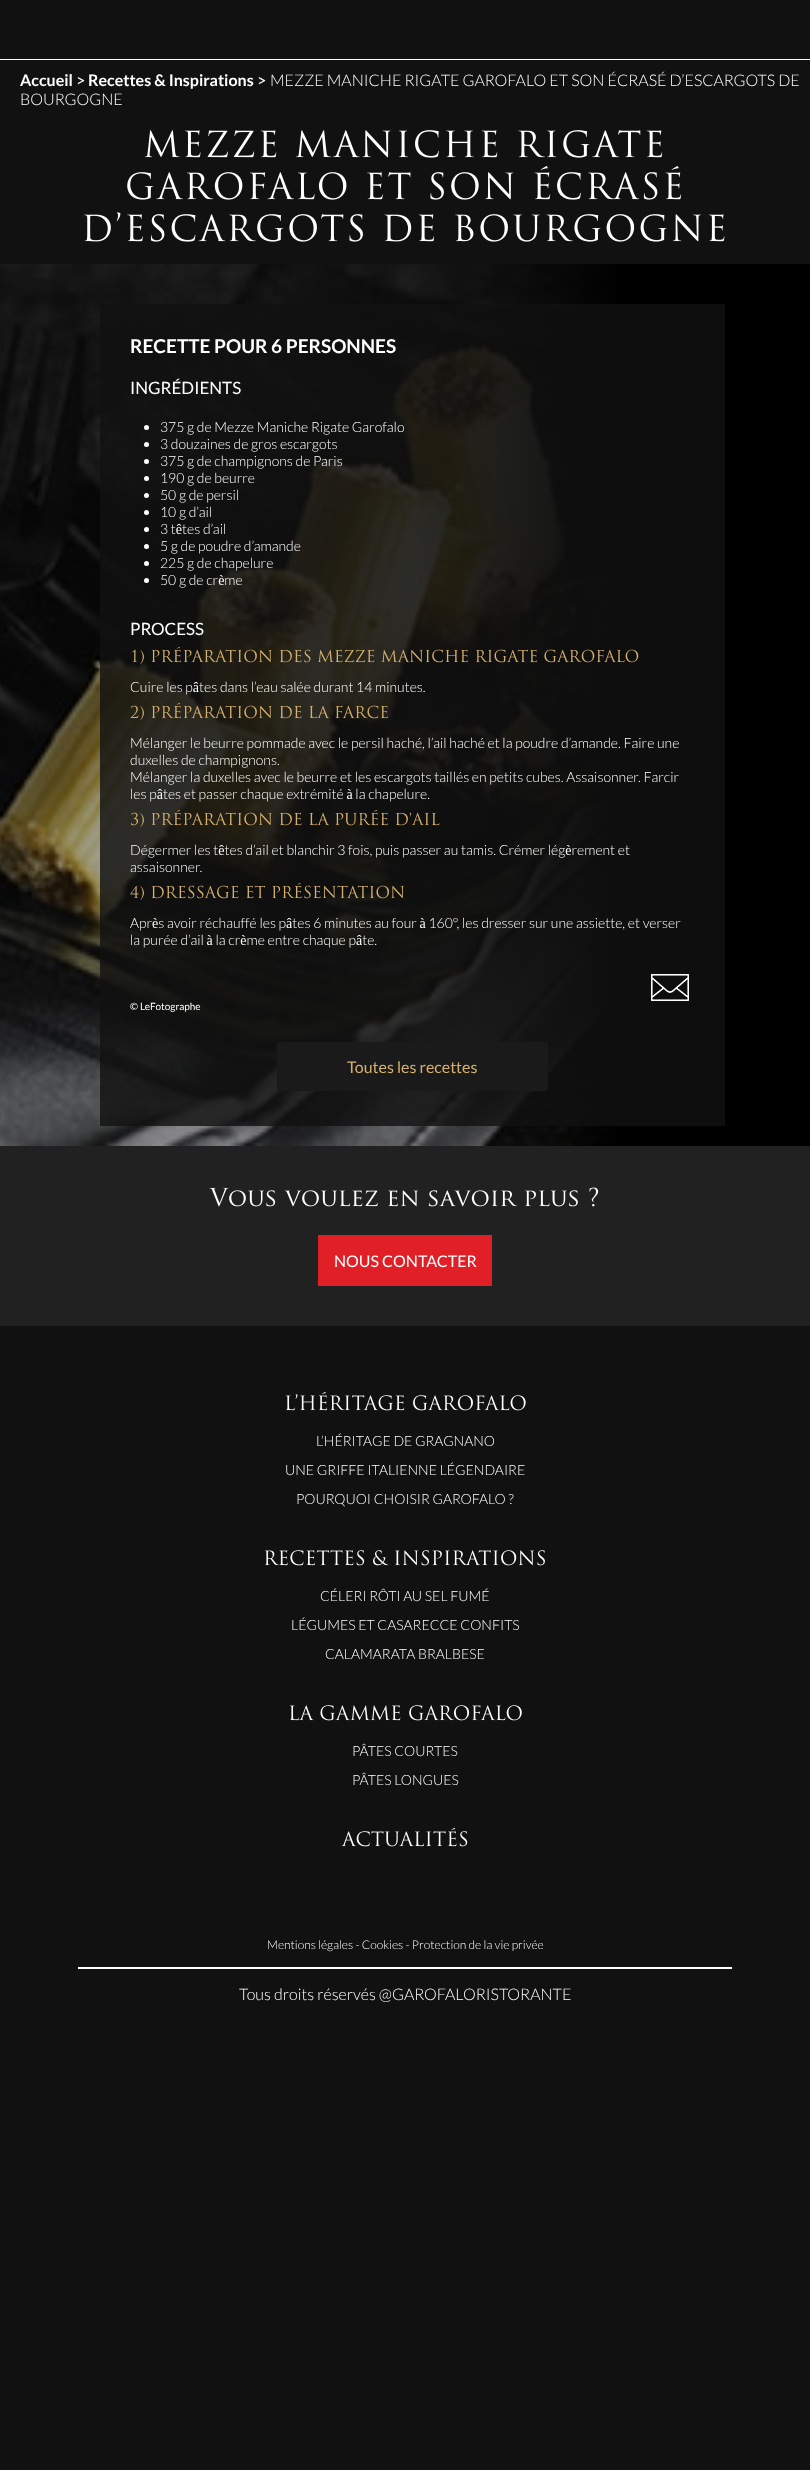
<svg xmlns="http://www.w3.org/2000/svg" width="810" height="2470">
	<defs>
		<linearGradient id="g1" gradientUnits="userSpaceOnUse" x1="413" y1="705" x2="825" y2="705"><stop offset="0" stop-color="#000000" stop-opacity="0" /><stop offset="0.5" stop-color="#000000" /><stop offset="1" stop-color="#000000" /></linearGradient>
	</defs>
	<rect width="100%" height="100%" fill="#111111" />
	<rect x="0" y="59" width="810" height="1" fill="#FFFFFF" />
	<text x="20" y="86" font-family="Lato" font-size="16" font-weight="700" fill="#FFFFFF">Accueil</text>
	<text x="76" y="86" font-family="Lato" font-size="16" fill="#FFFFFF">&gt;</text>
	<text x="88" y="86" font-family="Lato" font-size="16" font-weight="700" fill="#FFFFFF">Recettes &amp; Inspirations</text>
	<text x="257" y="86" font-family="Lato" font-size="16" fill="#FFFFFF">&gt;</text>
	<g font-family="Lato" font-size="16" font-weight="300" fill="#FFFFFF">
		<text x="270" y="86">MEZZE MANICHE RIGATE GAROFALO ET SON ÉCRASÉ D’ESCARGOTS DE</text>
		<text x="20" y="105">BOURGOGNE</text>
	</g>
	<image x="144" y="130" width="519" height="28" href="assets/img1.png" />
	<image x="127" y="166" width="554" height="34" href="assets/img2.png" />
	<image x="84" y="212" width="641" height="30" href="assets/img3.png" />
	<image x="0" y="264" width="618" height="882" href="assets/img4.png" />
	<rect x="417" y="264" width="393" height="882" fill="url(#g1)" />
	<rect x="100" y="304" width="625" height="822" fill="#111111" fill-opacity="0.81" />
	<text x="130" y="353" font-family="Lato" font-size="19" font-weight="700" fill="#FFFFFF">RECETTE POUR 6 PERSONNES</text>
	<text x="130" y="394" font-family="Lato" font-size="17" fill="#FFFFFF">INGRÉDIENTS</text>
	<circle cx="146.5" cy="427.5" r="2.5" fill="#FFFFFF" />
	<text x="160" y="432" font-family="Lato" font-size="14" font-weight="300" fill="#FFFFFF">375 g de Mezze Maniche Rigate Garofalo</text>
	<circle cx="146.5" cy="444.5" r="2.5" fill="#FFFFFF" />
	<text x="160" y="449" font-family="Lato" font-size="14" font-weight="300" fill="#FFFFFF">3 douzaines de gros escargots</text>
	<circle cx="146.5" cy="461.5" r="2.5" fill="#FFFFFF" />
	<text x="160" y="466" font-family="Lato" font-size="14" font-weight="300" fill="#FFFFFF">375 g de champignons de Paris</text>
	<circle cx="146.5" cy="478.5" r="2.5" fill="#FFFFFF" />
	<text x="160" y="483" font-family="Lato" font-size="14" font-weight="300" fill="#FFFFFF">190 g de beurre</text>
	<circle cx="146.5" cy="495.5" r="2.5" fill="#FFFFFF" />
	<text x="160" y="500" font-family="Lato" font-size="14" font-weight="300" fill="#FFFFFF">50 g de persil</text>
	<circle cx="146.5" cy="512.5" r="2.5" fill="#FFFFFF" />
	<text x="160" y="517" font-family="Lato" font-size="14" font-weight="300" fill="#FFFFFF">10 g d’ail</text>
	<circle cx="146.5" cy="529.5" r="2.5" fill="#FFFFFF" />
	<text x="160" y="534" font-family="Lato" font-size="14" font-weight="300" fill="#FFFFFF">3 têtes d’ail</text>
	<circle cx="146.5" cy="546.5" r="2.5" fill="#FFFFFF" />
	<text x="160" y="551" font-family="Lato" font-size="14" font-weight="300" fill="#FFFFFF">5 g de poudre d’amande</text>
	<circle cx="146.5" cy="563.5" r="2.5" fill="#FFFFFF" />
	<text x="160" y="568" font-family="Lato" font-size="14" font-weight="300" fill="#FFFFFF">225 g de chapelure</text>
	<circle cx="146.5" cy="580.5" r="2.5" fill="#FFFFFF" />
	<text x="160" y="585" font-family="Lato" font-size="14" font-weight="300" fill="#FFFFFF">50 g de crème</text>
	<text x="130" y="635" font-family="Lato" font-size="17" fill="#FFFFFF">PROCESS</text>
	<image x="131" y="647" width="508" height="17" href="assets/img5.png" />
	<text x="130" y="692" font-family="Lato" font-size="14" font-weight="300" fill="#FFFFFF">Cuire les pâtes dans l’eau salée durant 14 minutes.</text>
	<image x="130" y="703" width="258" height="17" href="assets/img6.png" />
	<g font-family="Lato" font-size="14" font-weight="300" fill="#FFFFFF">
		<text x="130" y="748">Mélanger le beurre pommade avec le persil haché, l’ail haché et la poudre d’amande. Faire une</text>
		<text x="130" y="765">duxelles de champignons.</text>
		<text x="130" y="782">Mélanger la duxelles avec le beurre et les escargots taillés en petits cubes. Assaisonner. Farcir</text>
		<text x="130" y="799">les pâtes et passer chaque extrémité à la chapelure.</text>
	</g>
	<image x="131" y="810" width="309" height="17" href="assets/img7.png" />
	<g font-family="Lato" font-size="14" font-weight="300" fill="#FFFFFF">
		<text x="130" y="855">Dégermer les têtes d’ail et blanchir 3 fois, puis passer au tamis. Crémer légèrement et</text>
		<text x="130" y="872">assaisonner.</text>
	</g>
	<image x="130" y="883" width="274" height="17" href="assets/img8.png" />
	<g font-family="Lato" font-size="14" font-weight="300" fill="#FFFFFF">
		<text x="130" y="928">Après avoir réchauffé les pâtes 6 minutes au four à 160°, les dresser sur une assiette, et verser</text>
		<text x="130" y="945">la purée d’ail à la crème entre chaque pâte.</text>
	</g>
	<image x="651" y="974" width="38" height="27" href="assets/img9.png" />
	<text x="130" y="1010" font-family="Lato" font-size="10" fill="#FFFFFF">© LeFotographe</text>
	<rect x="277" y="1042" width="271" height="49" rx="3" fill="#1A1A1A" />
	<text x="347" y="1073" font-family="Lato" font-size="16" fill="#D6B16D">Toutes les recettes</text>
	<rect x="0" y="1146" width="810" height="180" fill="#212121" />
	<image x="209" y="1187" width="390" height="20" href="assets/img10.png" />
	<rect x="318" y="1235" width="174" height="51" fill="#E01F26" />
	<text x="334" y="1267" font-family="Lato" font-size="16" fill="#FFFFFF">NOUS CONTACTER</text>
	<image x="285" y="1392" width="241" height="19" href="assets/img11.png" />
	<g font-family="Lato" font-size="14" font-weight="300" fill="#FFFFFF">
		<text x="316" y="1446">L’HÉRITAGE DE GRAGNANO</text>
		<text x="285" y="1475">UNE GRIFFE ITALIENNE LÉGENDAIRE</text>
		<text x="296" y="1504">POURQUOI CHOISIR GAROFALO ?</text>
	</g>
	<image x="264" y="1550" width="281" height="16" href="assets/img12.png" />
	<g font-family="Lato" font-size="14" font-weight="300" fill="#FFFFFF">
		<text x="320" y="1601">CÉLERI RÔTI AU SEL FUMÉ</text>
		<text x="291" y="1630">LÉGUMES ET CASARECCE CONFITS</text>
		<text x="325" y="1659">CALAMARATA BRALBESE</text>
	</g>
	<image x="289" y="1705" width="233" height="16" href="assets/img13.png" />
	<g font-family="Lato" font-size="14" font-weight="300" fill="#FFFFFF">
		<text x="352" y="1756">PÂTES COURTES</text>
		<text x="352" y="1785">PÂTES LONGUES</text>
	</g>
	<image x="341" y="1828" width="127" height="19" href="assets/img14.png" />
	<text x="267" y="1949" font-family="Lato" font-size="12" font-weight="300" fill="#FFFFFF">Mentions légales - Cookies - Protection de la vie privée</text>
	<rect x="78" y="1967" width="654" height="2" fill="#FFFFFF" />
	<text x="239" y="2000" font-family="Lato" font-size="16" font-weight="300" fill="#FFFFFF">Tous droits réservés @GAROFALORISTORANTE</text>
</svg>
